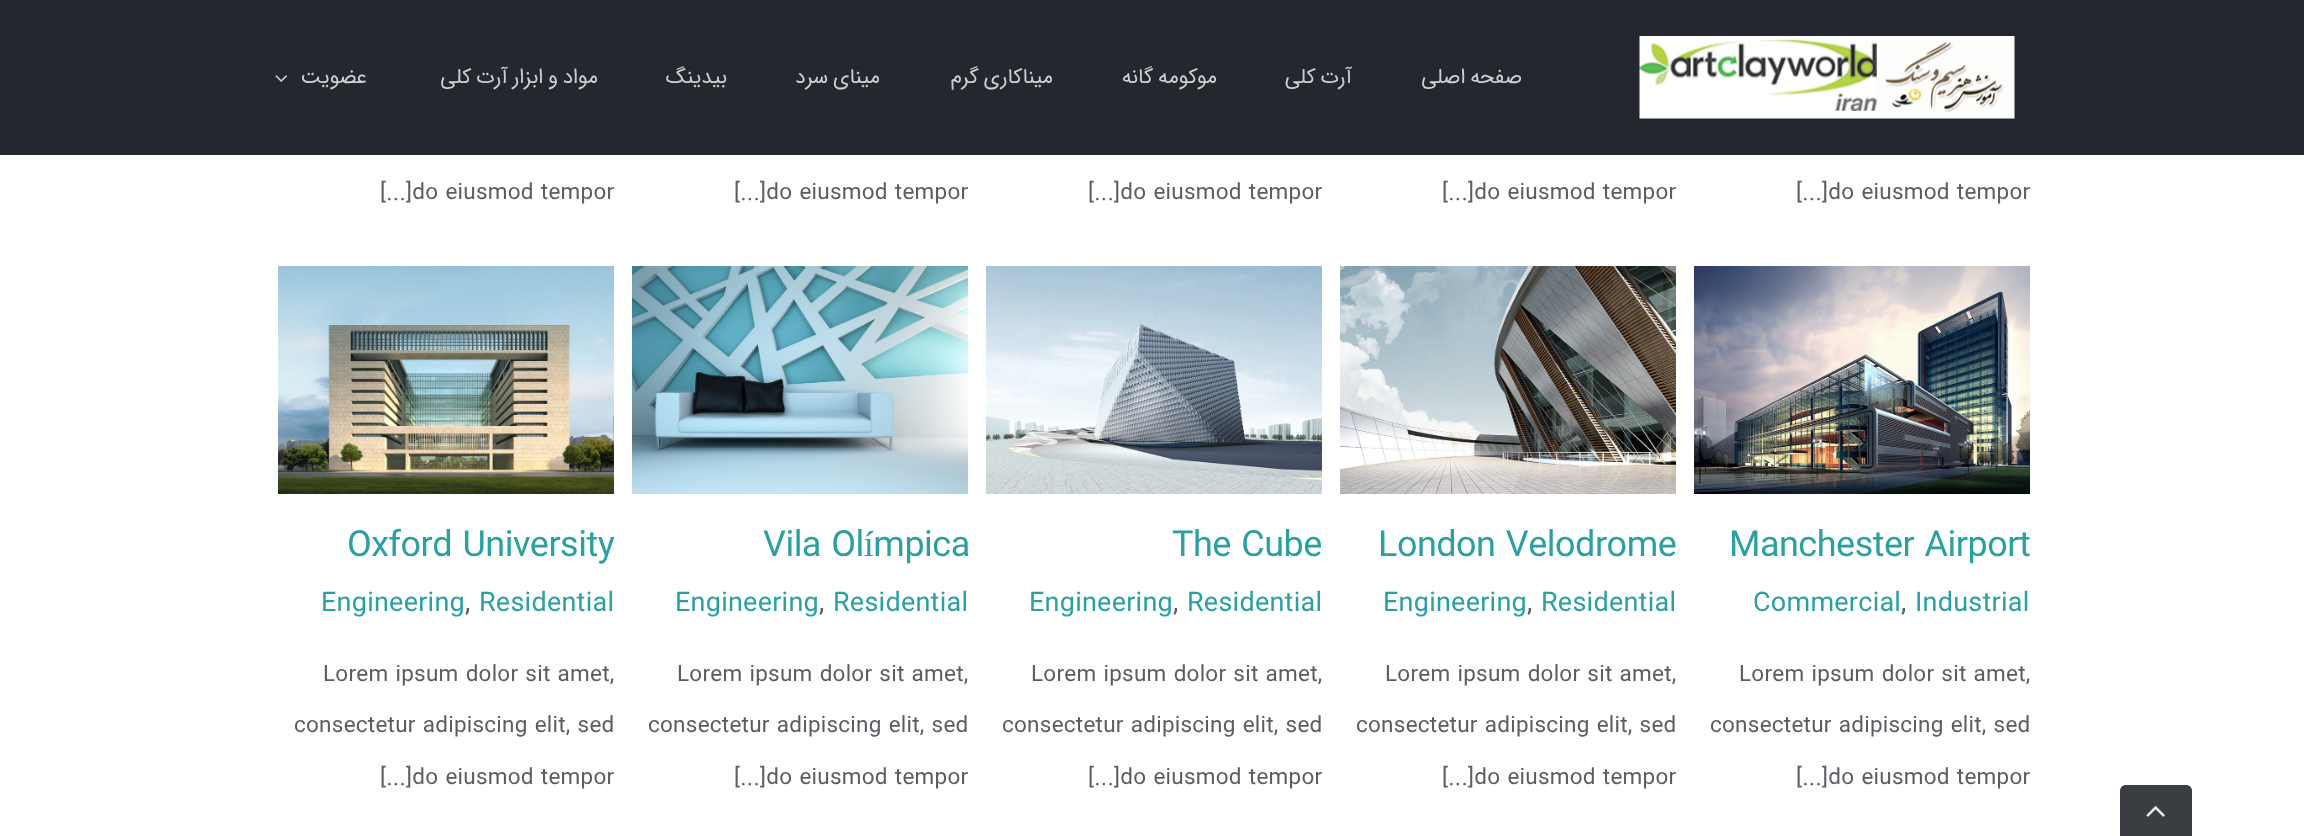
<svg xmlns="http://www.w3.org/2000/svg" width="2304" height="836">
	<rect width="100%" height="100%" fill="#FFFFFF" />
	<rect x="0" y="0" width="2304" height="155" fill="#24272D" />
	<image x="275" y="75" width="12" height="7" href="assets/img1.png" />
	<g font-family="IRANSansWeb" font-size="21" letter-spacing="0.3" direction="rtl" fill="#CFCFCF">
		<text x="367" y="83">عضویت</text>
		<text x="598" y="83" word-spacing="-1.5">مواد و ابزار آرت کلی</text>
		<text x="727" y="83">بیدینگ</text>
		<text x="880" y="83" word-spacing="-1.5">مینای سرد</text>
		<text x="1053" y="83" word-spacing="-1.5">میناکاری گرم</text>
		<text x="1217" y="83" word-spacing="-1.5">موکومه گانه</text>
		<text x="1352" y="83" word-spacing="-1.5">آرت کلی</text>
		<text x="1522" y="83" word-spacing="-1.5">صفحه اصلی</text>
	</g>
	<image x="1639" y="36" width="376" height="83" href="assets/img2.png" />
	<g font-family="IRANSansWeb" font-size="22.5" letter-spacing="0.25" fill="#5A5D62">
		<text x="380" y="199">[...]do eiusmod tempor</text>
		<text x="734" y="199">[...]do eiusmod tempor</text>
		<text x="1088" y="199">[...]do eiusmod tempor</text>
		<text x="1442" y="199">[...]do eiusmod tempor</text>
		<text x="1796" y="199">[...]do eiusmod tempor</text>
	</g>
	<image x="278" y="266" width="336" height="228" href="assets/img3.png" />
	<text x="347" y="556" font-family="IRANSansWeb" font-size="36" letter-spacing="-0.5" fill="#2BA0A3">Oxford University</text>
	<text x="321" y="611" font-family="IRANSansWeb" font-size="27" letter-spacing="0.25" fill="#2BA0A3">Engineering</text>
	<text x="465" y="611" font-family="IRANSansWeb" font-size="27" letter-spacing="0.25" fill="#5A5D62">,</text>
	<text x="479" y="611" font-family="IRANSansWeb" font-size="27" letter-spacing="0.25" fill="#2BA0A3">Residential</text>
	<g font-family="IRANSansWeb" font-size="22.5" letter-spacing="0.25" fill="#5A5D62">
		<text x="323" y="681">Lorem ipsum dolor sit amet,</text>
		<text x="294" y="732">consectetur adipiscing elit, sed</text>
		<text x="380" y="784">[...]do eiusmod tempor</text>
	</g>
	<image x="632" y="266" width="336" height="228" href="assets/img4.png" />
	<text x="763" y="556" font-family="IRANSansWeb" font-size="36" letter-spacing="-0.5" fill="#2BA0A3">Vila Olímpica</text>
	<text x="675" y="611" font-family="IRANSansWeb" font-size="27" letter-spacing="0.25" fill="#2BA0A3">Engineering</text>
	<text x="819" y="611" font-family="IRANSansWeb" font-size="27" letter-spacing="0.25" fill="#5A5D62">,</text>
	<text x="833" y="611" font-family="IRANSansWeb" font-size="27" letter-spacing="0.25" fill="#2BA0A3">Residential</text>
	<g font-family="IRANSansWeb" font-size="22.5" letter-spacing="0.25" fill="#5A5D62">
		<text x="677" y="681">Lorem ipsum dolor sit amet,</text>
		<text x="648" y="732">consectetur adipiscing elit, sed</text>
		<text x="734" y="784">[...]do eiusmod tempor</text>
	</g>
	<image x="986" y="266" width="336" height="228" href="assets/img5.png" />
	<text x="1172" y="556" font-family="IRANSansWeb" font-size="36" letter-spacing="-0.5" fill="#2BA0A3">The Cube</text>
	<text x="1029" y="611" font-family="IRANSansWeb" font-size="27" letter-spacing="0.25" fill="#2BA0A3">Engineering</text>
	<text x="1173" y="611" font-family="IRANSansWeb" font-size="27" letter-spacing="0.25" fill="#5A5D62">,</text>
	<text x="1187" y="611" font-family="IRANSansWeb" font-size="27" letter-spacing="0.25" fill="#2BA0A3">Residential</text>
	<g font-family="IRANSansWeb" font-size="22.5" letter-spacing="0.25" fill="#5A5D62">
		<text x="1031" y="681">Lorem ipsum dolor sit amet,</text>
		<text x="1002" y="732">consectetur adipiscing elit, sed</text>
		<text x="1088" y="784">[...]do eiusmod tempor</text>
	</g>
	<image x="1340" y="266" width="336" height="228" href="assets/img6.png" />
	<text x="1378" y="556" font-family="IRANSansWeb" font-size="36" letter-spacing="-0.5" fill="#2BA0A3">London Velodrome</text>
	<text x="1383" y="611" font-family="IRANSansWeb" font-size="27" letter-spacing="0.25" fill="#2BA0A3">Engineering</text>
	<text x="1527" y="611" font-family="IRANSansWeb" font-size="27" letter-spacing="0.25" fill="#5A5D62">,</text>
	<text x="1541" y="611" font-family="IRANSansWeb" font-size="27" letter-spacing="0.25" fill="#2BA0A3">Residential</text>
	<g font-family="IRANSansWeb" font-size="22.5" letter-spacing="0.25" fill="#5A5D62">
		<text x="1385" y="681">Lorem ipsum dolor sit amet,</text>
		<text x="1356" y="732">consectetur adipiscing elit, sed</text>
		<text x="1442" y="784">[...]do eiusmod tempor</text>
	</g>
	<image x="1694" y="266" width="336" height="228" href="assets/img7.png" />
	<text x="1729" y="556" font-family="IRANSansWeb" font-size="36" letter-spacing="-0.5" fill="#2BA0A3">Manchester Airport</text>
	<text x="1753" y="611" font-family="IRANSansWeb" font-size="27" letter-spacing="0.25" fill="#2BA0A3">Commercial</text>
	<text x="1901" y="611" font-family="IRANSansWeb" font-size="27" letter-spacing="0.25" fill="#5A5D62">,</text>
	<text x="1915" y="611" font-family="IRANSansWeb" font-size="27" letter-spacing="0.25" fill="#2BA0A3">Industrial</text>
	<g font-family="IRANSansWeb" font-size="22.5" letter-spacing="0.25" fill="#5A5D62">
		<text x="1739" y="681">Lorem ipsum dolor sit amet,</text>
		<text x="1710" y="732">consectetur adipiscing elit, sed</text>
		<text x="1796" y="784">[...]do eiusmod tempor</text>
	</g>
	<path d="M2126 785H2186C2189.5 785 2192 787.5 2192 791V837H2120V791C2120 787.5 2122.5 785 2126 785Z" fill="#3A3D42" />
	<image x="2146" y="806" width="19" height="11" href="assets/img8.png" />
</svg>
